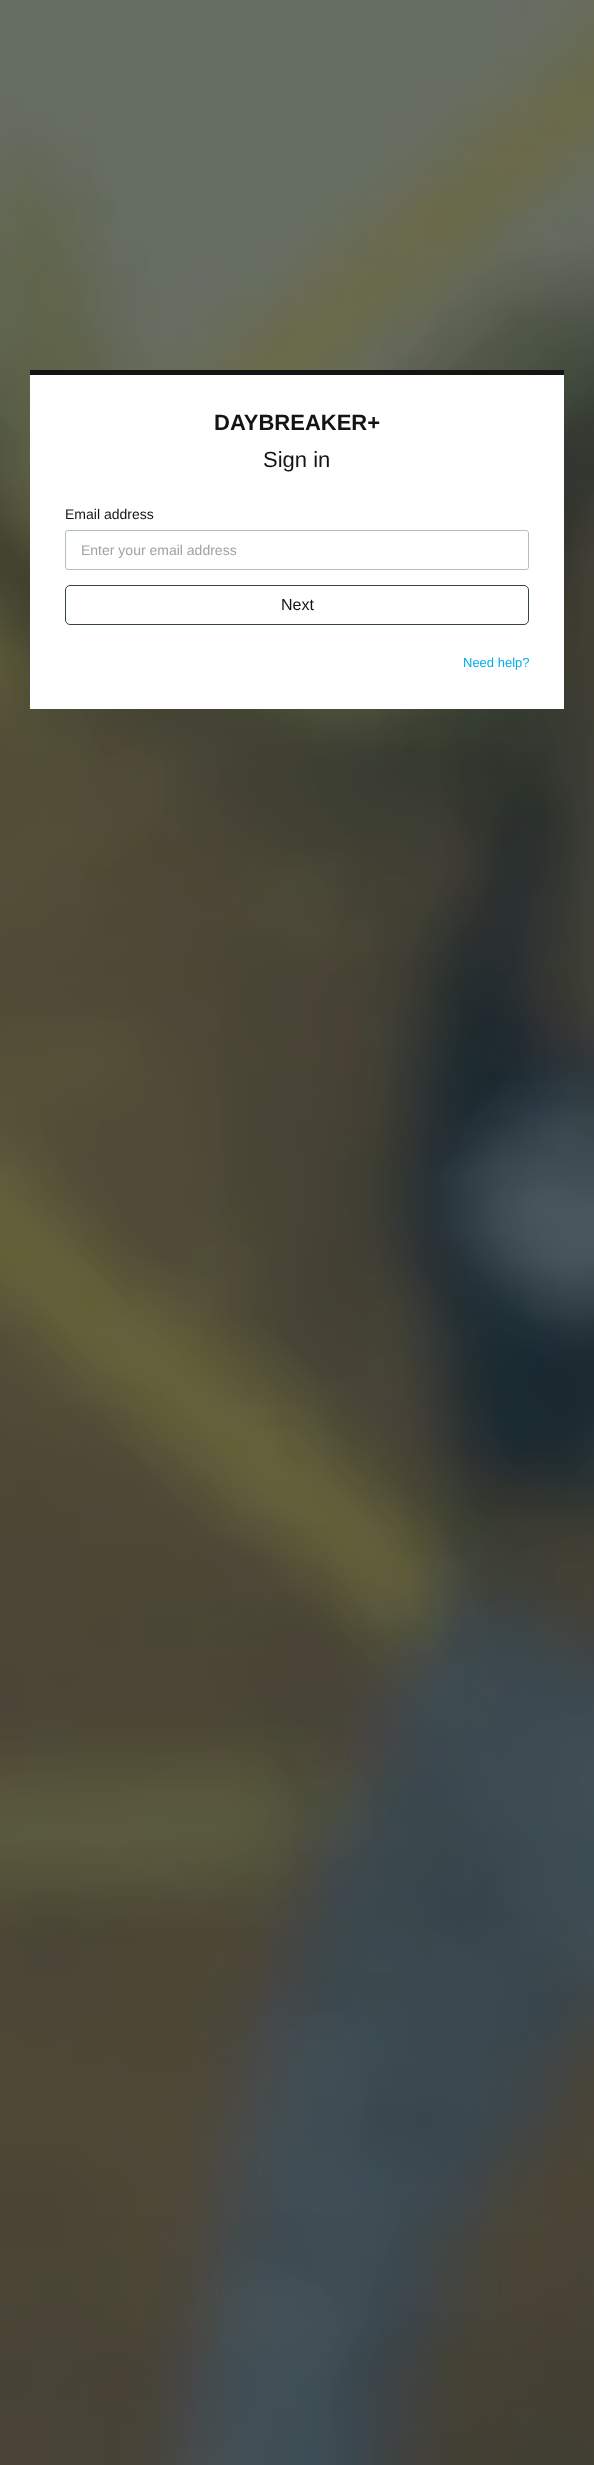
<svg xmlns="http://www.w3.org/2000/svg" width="594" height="2465">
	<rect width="100%" height="100%" fill="#1A2E3B" />
	<image x="0" y="0" width="594" height="2465" href="assets/img1.png" />
	<rect x="30" y="375" width="534" height="334" fill="#FFFFFF" />
	<rect x="30" y="370" width="534" height="5" fill="#141414" />
	<text x="214" y="430" font-family="Liberation Sans" font-size="22" font-weight="700" fill="#141414">DAYBREAKER+</text>
	<text x="263" y="467" font-family="Liberation Sans" font-size="22" fill="#141414">Sign in</text>
	<text x="65" y="519" font-family="Liberation Sans" font-size="14" fill="#141414">Email address</text>
	<rect x="65.5" y="530.5" width="463" height="39" rx="2.5" fill="none" stroke="#B3BFC8" />
	<text x="81" y="555" font-family="Liberation Sans" font-size="14" fill="#A1A1A1">Enter your email address</text>
	<rect x="65.5" y="585.5" width="463" height="39" rx="4.5" fill="none" stroke="#31434F" />
	<text x="281" y="610" font-family="Liberation Sans" font-size="16" fill="#141414">Next</text>
	<text x="463" y="667" font-family="Liberation Sans" font-size="13" fill="#00ADEF">Need help?</text>
</svg>
